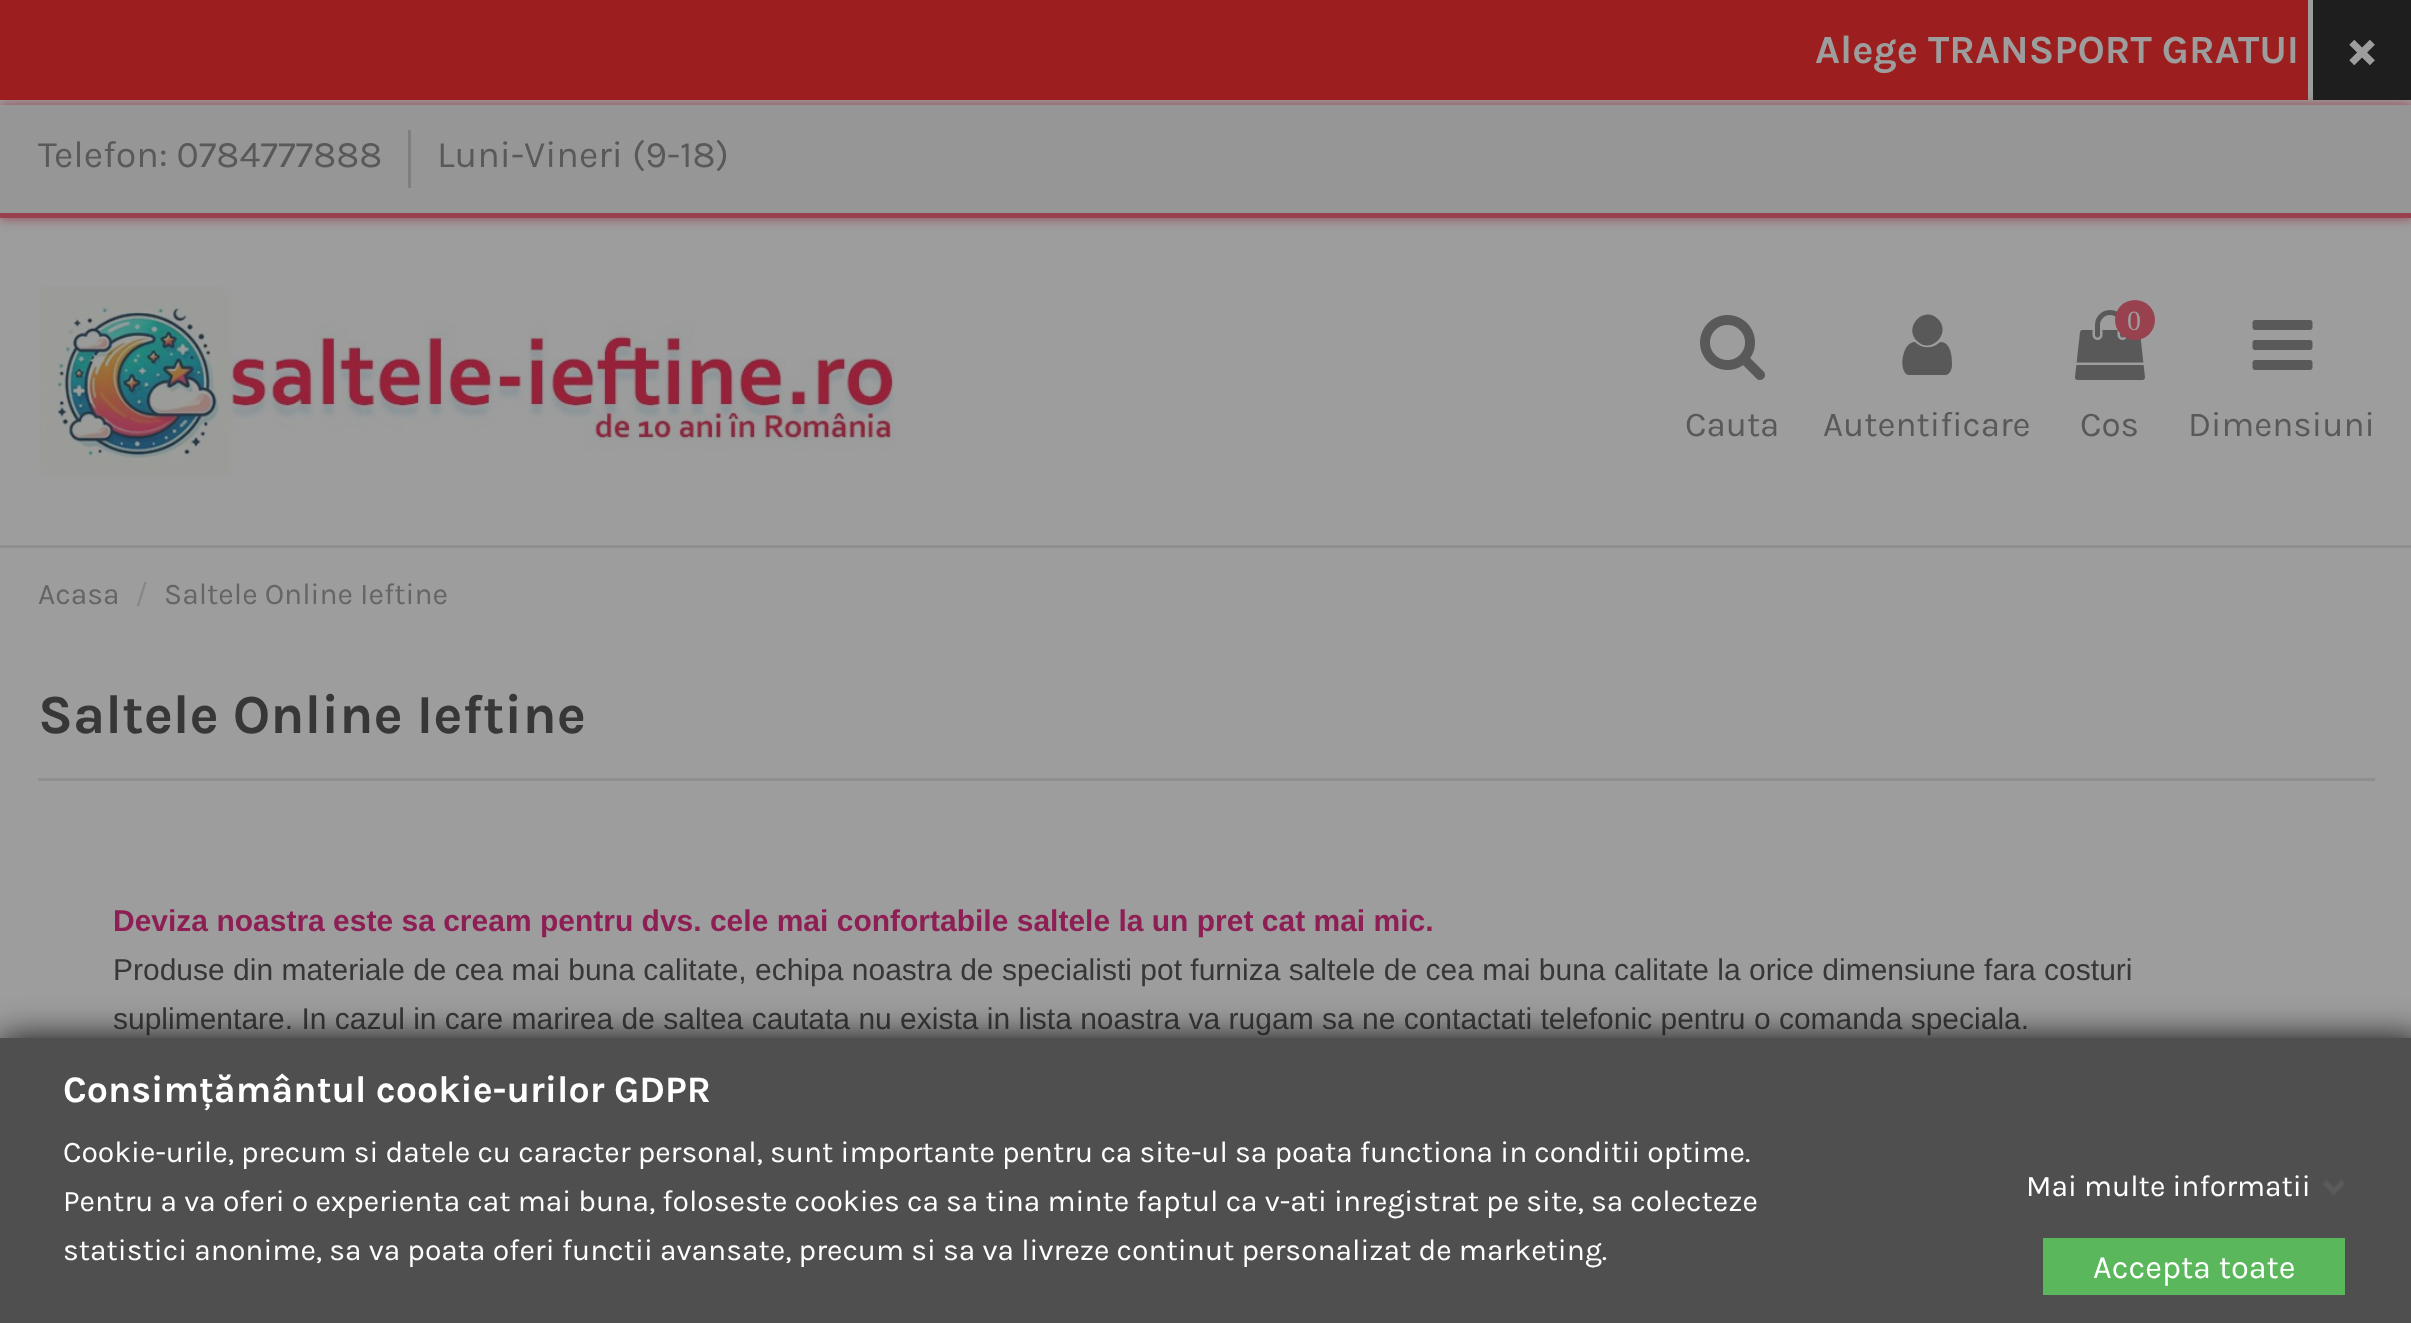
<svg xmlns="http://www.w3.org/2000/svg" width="2411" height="1323">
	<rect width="100%" height="100%" fill="#9D9D9D" />
	<rect x="0" y="105" width="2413" height="113" fill="#99424F" filter="blur(6px)" />
	<rect x="0" y="0" width="2308" height="100" fill="#9D1E1E" />
	<text x="1815" y="63" font-family="Karla" font-size="40" font-weight="700" fill="#9D9D9D">Alege TRANSPORT GRATUI</text>
	<rect x="2313" y="0" width="98" height="100" fill="#1E1E1E" />
	<text x="2346" y="68" font-family="Karla" font-size="60" font-weight="700" fill="#9D9D9D">×</text>
	<rect x="0" y="105" width="2411" height="108" fill="#969696" />
	<rect x="0" y="213" width="2411" height="5" fill="#99424F" />
	<text x="38" y="167" font-family="Karla" font-size="37.5" fill="#595959">Telefon: 0784777888</text>
	<rect x="408" y="130" width="3" height="58" fill="#7F7F7F" />
	<text x="437" y="167" font-family="Karla" font-size="37.5" fill="#595959">Luni-Vineri (9-18)</text>
	<rect x="0" y="545" width="2411" height="3" fill="#8F8F8F" />
	<image x="40" y="286" width="855" height="191" href="assets/img1.png" />
	<image x="1700" y="315" width="65" height="65" href="assets/img2.png" />
	<text x="1685" y="436" font-family="Karla" font-size="35" fill="#595959">Cauta</text>
	<path d="M1952 365C1952 369 1950 374 1946 375H1916H1908C1898 371 1902 342 1915 342C1922 349 1933 349 1940 342C1951 342 1952 356 1952 365ZM1938 319C1952 333 1931 355 1917 341C1903 327 1924 305 1938 319Z" fill="#595959" />
	<text x="1823" y="436" font-family="Karla" font-size="35" fill="#595959">Autentificare</text>
	<image x="2075" y="310" width="70" height="70" href="assets/img3.png" />
	<circle cx="2135" cy="320" r="20" fill="#99424F" />
	<text x="2127" y="330" font-family="Liberation Serif" font-size="28" fill="#9D9D9D">0</text>
	<text x="2080" y="436" font-family="Karla" font-size="35" fill="#595959">Cos</text>
	<image x="2252" y="320" width="61" height="50" href="assets/img4.png" />
	<text x="2188" y="436" font-family="Karla" font-size="35" fill="#595959">Dimensiuni</text>
	<text x="38" y="604" font-family="Karla" font-size="30" fill="#656565">Acasa</text>
	<text x="135" y="604" font-family="Karla" font-size="30" fill="#878787">/</text>
	<text x="164" y="604" font-family="Karla" font-size="30" fill="#656565">Saltele Online Ieftine</text>
	<rect x="38" y="778" width="2337" height="3" fill="#8F8F8F" />
	<text x="38" y="733" font-family="Karla" font-size="55" font-weight="700" fill="#373737">Saltele Online Ieftine</text>
	<text x="113" y="931" font-family="Liberation Sans" font-size="30" font-weight="700" fill="#8D1F55">Deviza noastra este sa cream pentru dvs. cele mai confortabile saltele la un pret cat mai mic.</text>
	<g font-family="Liberation Sans" font-size="30" fill="#373737">
		<text x="113" y="980">Produse din materiale de cea mai buna calitate, echipa noastra de specialisti pot furniza saltele de cea mai buna calitate la orice dimensiune fara costuri</text>
		<text x="113" y="1029">suplimentare. In cazul in care marirea de saltea cautata nu exista in lista noastra va rugam sa ne contactati telefonic pentru o comanda speciala.</text>
	</g>
	<rect x="0" y="1038" width="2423" height="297" fill="#121212" filter="blur(17.5px)" />
	<rect x="0" y="1038" width="2411" height="285" fill="#4F4F4F" />
	<text x="63" y="1102" font-family="Karla" font-size="37.5" font-weight="700" fill="#FFFFFF">Consimțământul cookie-urilor GDPR</text>
	<g font-family="Karla" font-size="30" fill="#FFFFFF">
		<text x="63" y="1162">Cookie-urile, precum si datele cu caracter personal, sunt importante pentru ca site-ul sa poata functiona in conditii optime.</text>
		<text x="63" y="1211">Pentru a va oferi o experienta cat mai buna, foloseste cookies ca sa tina minte faptul ca v-ati inregistrat pe site, sa colecteze</text>
		<text x="63" y="1260">statistici anonime, sa va poata oferi functii avansate, precum si sa va livreze continut personalizat de marketing.</text>
		<text x="2026" y="1196">Mai multe informatii</text>
	</g>
	<image x="2322" y="1180" width="23" height="15" href="assets/img5.png" />
	<rect x="2043" y="1238" width="302" height="57" fill="#5BB75B" />
	<text x="2093" y="1278" font-family="Karla" font-size="32.5" fill="#FFFFFF">Accepta toate</text>
</svg>
